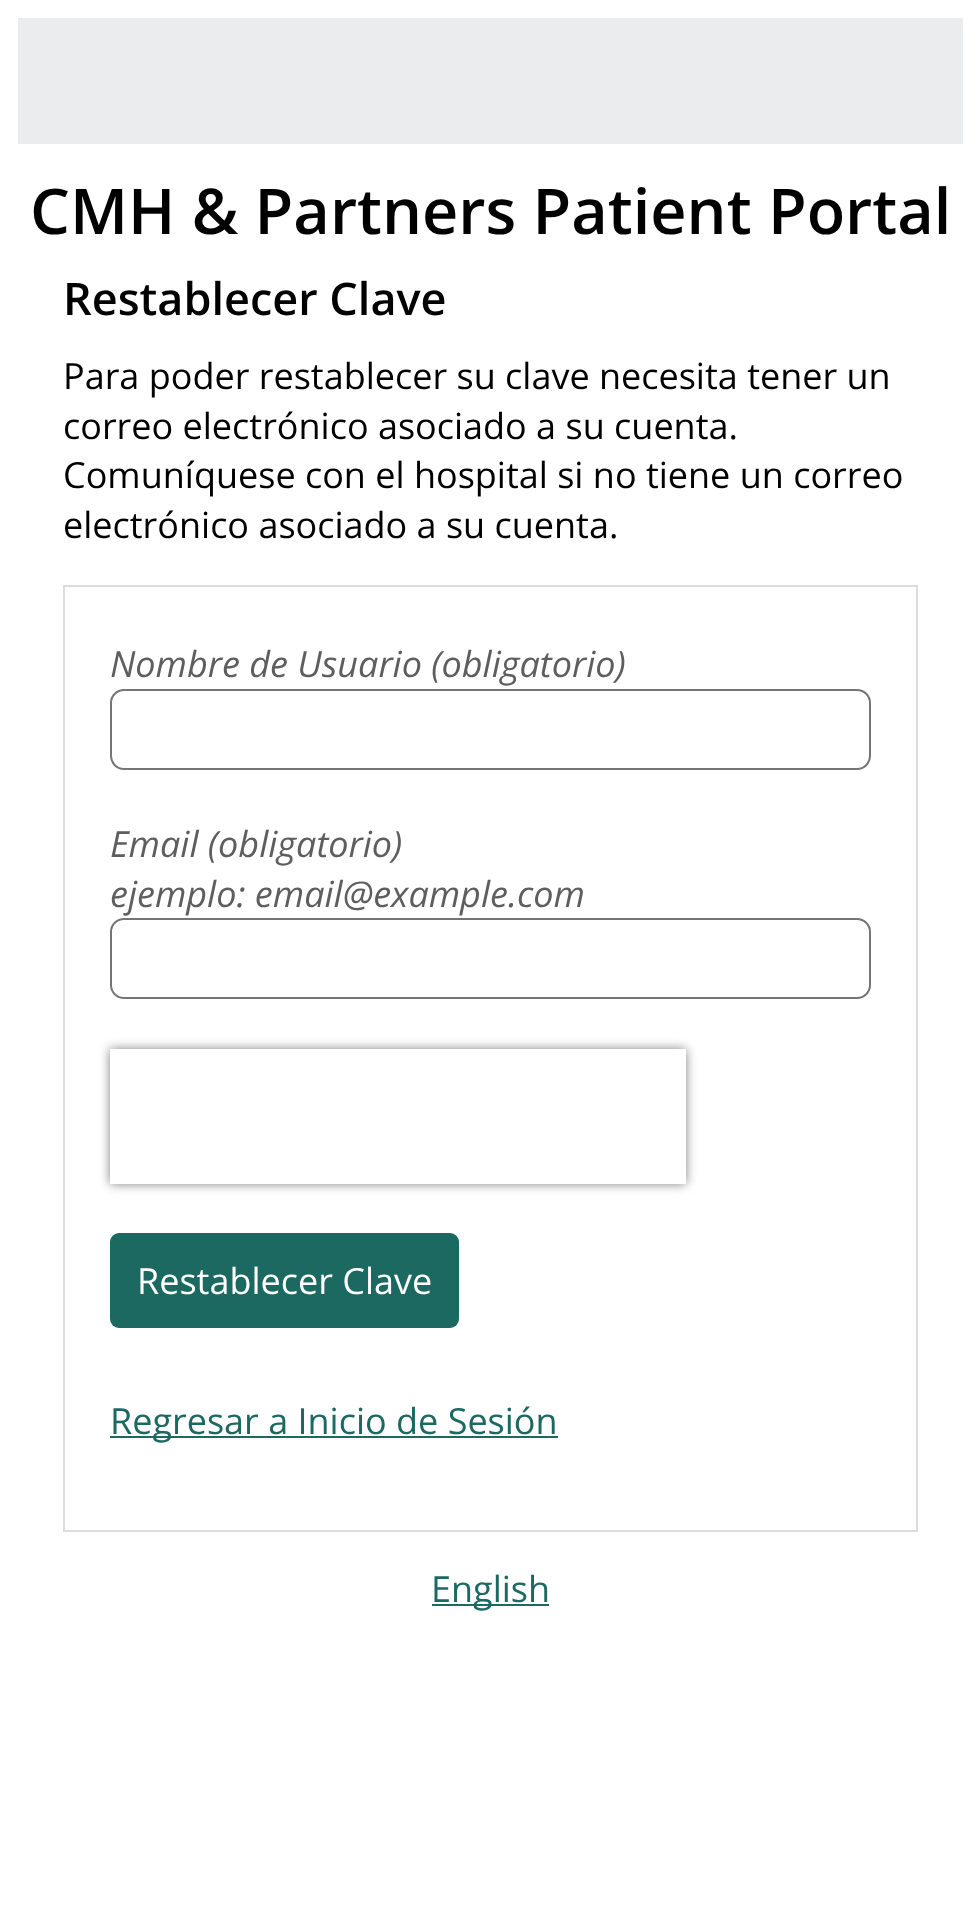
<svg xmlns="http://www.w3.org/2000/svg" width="979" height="1914">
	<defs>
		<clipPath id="clip1"><path d="M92 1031H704V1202H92ZM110 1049H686V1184H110Z" clip-rule="evenodd" /></clipPath>
	</defs>
	<rect width="100%" height="100%" fill="#FFFFFF" />
	<rect x="18" y="18" width="945" height="126" fill="#EAECED" />
	<text x="30" y="234" font-family="Open Sans" font-size="63" font-weight="600" fill="#000000">CMH &amp; Partners Patient Portal</text>
	<text x="63" y="315" font-family="Open Sans" font-size="45" font-weight="600" fill="#000000">Restablecer Clave</text>
	<g font-family="Open Sans" font-size="36" fill="#000000">
		<text x="63" y="389">Para poder restablecer su clave necesita tener un</text>
		<text x="63" y="439">correo electrónico asociado a su cuenta.</text>
		<text x="63" y="488">Comuníquese con el hospital si no tiene un correo</text>
		<text x="63" y="538">electrónico asociado a su cuenta.</text>
	</g>
	<rect x="64" y="586" width="853" height="945" fill="none" stroke="#DCDCDC" stroke-width="2" />
	<text x="110" y="677" font-family="Open Sans" font-size="36" font-style="italic" fill="#5E5E5E">Nombre de Usuario (obligatorio)</text>
	<rect x="111" y="690" width="759" height="79" rx="13" fill="none" stroke="#757575" stroke-width="2" />
	<g font-family="Open Sans" font-size="36" font-style="italic" fill="#5E5E5E">
		<text x="110" y="857">Email (obligatorio)</text>
		<text x="110" y="907">ejemplo: email@example.com</text>
	</g>
	<rect x="111" y="919" width="759" height="79" rx="13" fill="none" stroke="#757575" stroke-width="2" />
	<g clip-path="url(#clip1)">
		<rect x="110" y="1049" width="576" height="135" fill="#808080" filter="blur(5.5px)" />
	</g>
	<rect x="110" y="1233" width="349" height="95" rx="9" fill="#1C6962" />
	<text x="137" y="1294" font-family="Open Sans" font-size="36" fill="#FFFFFF">Restablecer Clave</text>
	<rect x="110" y="1436" width="448" height="2" fill="#1C6962" />
	<text x="110" y="1434" font-family="Open Sans" font-size="36" fill="#1C6962">Regresar a Inicio de Sesión</text>
	<rect x="432" y="1604" width="117" height="2" fill="#1C6962" />
	<text x="431" y="1602" font-family="Open Sans" font-size="36" fill="#1C6962">English</text>
</svg>
